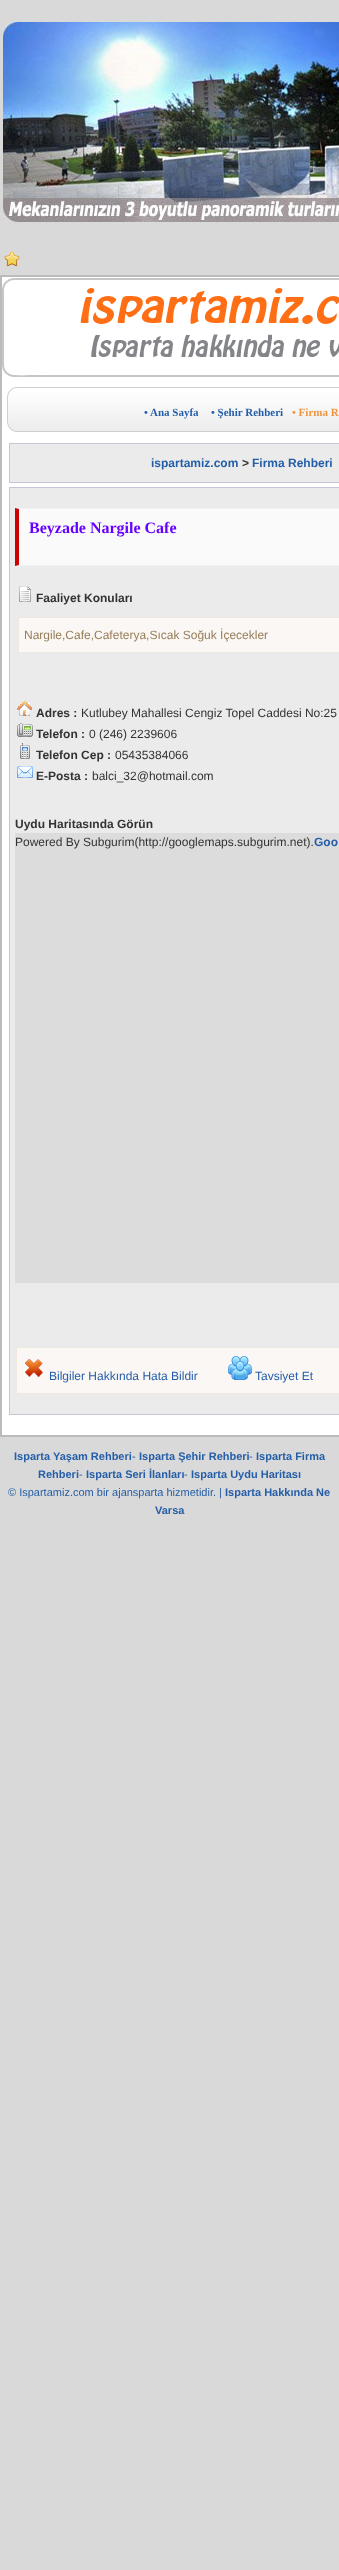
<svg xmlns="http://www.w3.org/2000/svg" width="339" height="2570">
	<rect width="100%" height="100%" fill="#D9D9D9" />
	<image x="3" y="22" width="336" height="200" href="assets/img1.png" />
	<image x="4" y="251" width="16" height="16" href="assets/img2.png" />
	<rect x="1" y="276" width="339" height="1160" fill="#FFFFFF" stroke="#BBBBBB" stroke-width="2" />
	<image x="2" y="278" width="337" height="99" href="assets/img3.png" />
	<image x="7" y="387" width="332" height="45" href="assets/img4.png" />
	<g font-family="Liberation Serif" font-size="11" font-weight="700" fill="#255EA8">
		<text x="144" y="416">• Ana Sayfa</text>
		<text x="211" y="416">• Şehir Rehberi</text>
	</g>
	<text x="292" y="416" font-family="Liberation Serif" font-size="11" font-weight="700" fill="#F09540">• Firma R</text>
	<rect x="9.5" y="443.5" width="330" height="39" fill="#EBEBEB" stroke="#C5C5D5" />
	<text x="151" y="467" font-family="Liberation Sans" font-size="12" font-weight="700" fill="#255EA8">ispartamiz.com</text>
	<text x="242" y="467" font-family="Liberation Sans" font-size="12" font-weight="700" fill="#333333">&gt;</text>
	<text x="252" y="467" font-family="Liberation Sans" font-size="12" font-weight="700" fill="#255EA8">Firma Rehberi</text>
	<rect x="9.5" y="487.5" width="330" height="927" fill="#EBEBEB" stroke="#C5C5D5" />
	<rect x="19" y="509" width="320" height="56" fill="#FAFAFA" />
	<path d="M15 508H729L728 509H19Z" fill="#F2F2F2" />
	<path d="M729 566H15L19 565H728Z" fill="#F2F2F2" />
	<path d="M15 566V508L19 509V565Z" fill="#CC0000" />
	<text x="29" y="533" font-family="Liberation Serif" font-size="16" font-weight="700" fill="#6600FF">Beyzade Nargile Cafe</text>
	<image x="19" y="586" width="12" height="16" href="assets/img5.png" />
	<text x="36" y="602" font-family="Liberation Sans" font-size="12" font-weight="700" fill="#333333">Faaliyet Konuları</text>
	<rect x="18.5" y="617.5" width="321" height="35" fill="#FAF7F5" stroke="#EEE8E1" />
	<text x="24" y="639" font-family="Liberation Sans" font-size="12" fill="#977C57">Nargile,Cafe,Cafeterya,Sıcak Soğuk İçecekler</text>
	<image x="17" y="701" width="15" height="15" href="assets/img6.png" />
	<text x="36" y="717" font-family="Liberation Sans" font-size="12" font-weight="700" fill="#333333">Adres :</text>
	<text x="81" y="717" font-family="Liberation Sans" font-size="12" fill="#333333">Kutlubey Mahallesi Cengiz Topel Caddesi No:25</text>
	<image x="17" y="723" width="16" height="14" href="assets/img7.png" />
	<text x="36" y="738" font-family="Liberation Sans" font-size="12" font-weight="700" fill="#333333">Telefon :</text>
	<text x="89" y="738" font-family="Liberation Sans" font-size="12" fill="#333333">0 (246) 2239606</text>
	<image x="20" y="743" width="10" height="16" href="assets/img8.png" />
	<text x="36" y="759" font-family="Liberation Sans" font-size="12" font-weight="700" fill="#333333">Telefon Cep :</text>
	<text x="115" y="759" font-family="Liberation Sans" font-size="12" fill="#333333">05435384066</text>
	<image x="17" y="766" width="16" height="12" href="assets/img9.png" />
	<text x="36" y="780" font-family="Liberation Sans" font-size="12" font-weight="700" fill="#333333">E-Posta :</text>
	<text x="92" y="780" font-family="Liberation Sans" font-size="12" fill="#333333">balci_32@hotmail.com</text>
	<text x="15" y="828" font-family="Liberation Sans" font-size="12" font-weight="700" fill="#333333">Uydu Haritasında Görün</text>
	<rect x="15" y="833" width="324" height="450" fill="#DCDCDC" />
	<text x="15" y="846" font-family="Liberation Sans" font-size="12" fill="#333333">Powered By Subgurim(http://googlemaps.subgurim.net).</text>
	<text x="314" y="846" font-family="Liberation Sans" font-size="12" font-weight="700" fill="#255EA8">Goo</text>
	<rect x="16.5" y="1347.5" width="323" height="46" fill="#FAF7F5" stroke="#EEE8E1" />
	<image x="25" y="1359" width="18" height="18" href="assets/img10.png" />
	<text x="49" y="1380" font-family="Liberation Sans" font-size="12" fill="#255EA8">Bilgiler Hakkında Hata Bildir</text>
	<image x="228" y="1356" width="24" height="24" href="assets/img11.png" />
	<text x="255" y="1380" font-family="Liberation Sans" font-size="12" fill="#255EA8">Tavsiyet Et</text>
	<text x="14" y="1460" font-family="Liberation Sans" font-size="11" font-weight="700" fill="#255EA8">Isparta Yaşam Rehberi</text>
	<text x="132" y="1460" font-family="Liberation Sans" font-size="11" fill="#255EA8">-</text>
	<text x="139" y="1460" font-family="Liberation Sans" font-size="11" font-weight="700" fill="#255EA8">Isparta Şehir Rehberi</text>
	<text x="249" y="1460" font-family="Liberation Sans" font-size="11" fill="#255EA8">-</text>
	<g font-family="Liberation Sans" font-size="11" font-weight="700" fill="#255EA8">
		<text x="256" y="1460">Isparta Firma</text>
		<text x="38" y="1478">Rehberi</text>
	</g>
	<text x="79" y="1478" font-family="Liberation Sans" font-size="11" fill="#255EA8">-</text>
	<text x="86" y="1478" font-family="Liberation Sans" font-size="11" font-weight="700" fill="#255EA8">Isparta Seri İlanları</text>
	<text x="184" y="1478" font-family="Liberation Sans" font-size="11" fill="#255EA8">-</text>
	<text x="191" y="1478" font-family="Liberation Sans" font-size="11" font-weight="700" fill="#255EA8">Isparta Uydu Haritası</text>
	<text x="8" y="1496" font-family="Liberation Sans" font-size="11" fill="#255EA8">© Ispartamiz.com bir ajansparta hizmetidir. |</text>
	<g font-family="Liberation Sans" font-size="11" font-weight="700" fill="#255EA8">
		<text x="225" y="1496">Isparta Hakkında Ne</text>
		<text x="155" y="1514">Varsa</text>
	</g>
</svg>
